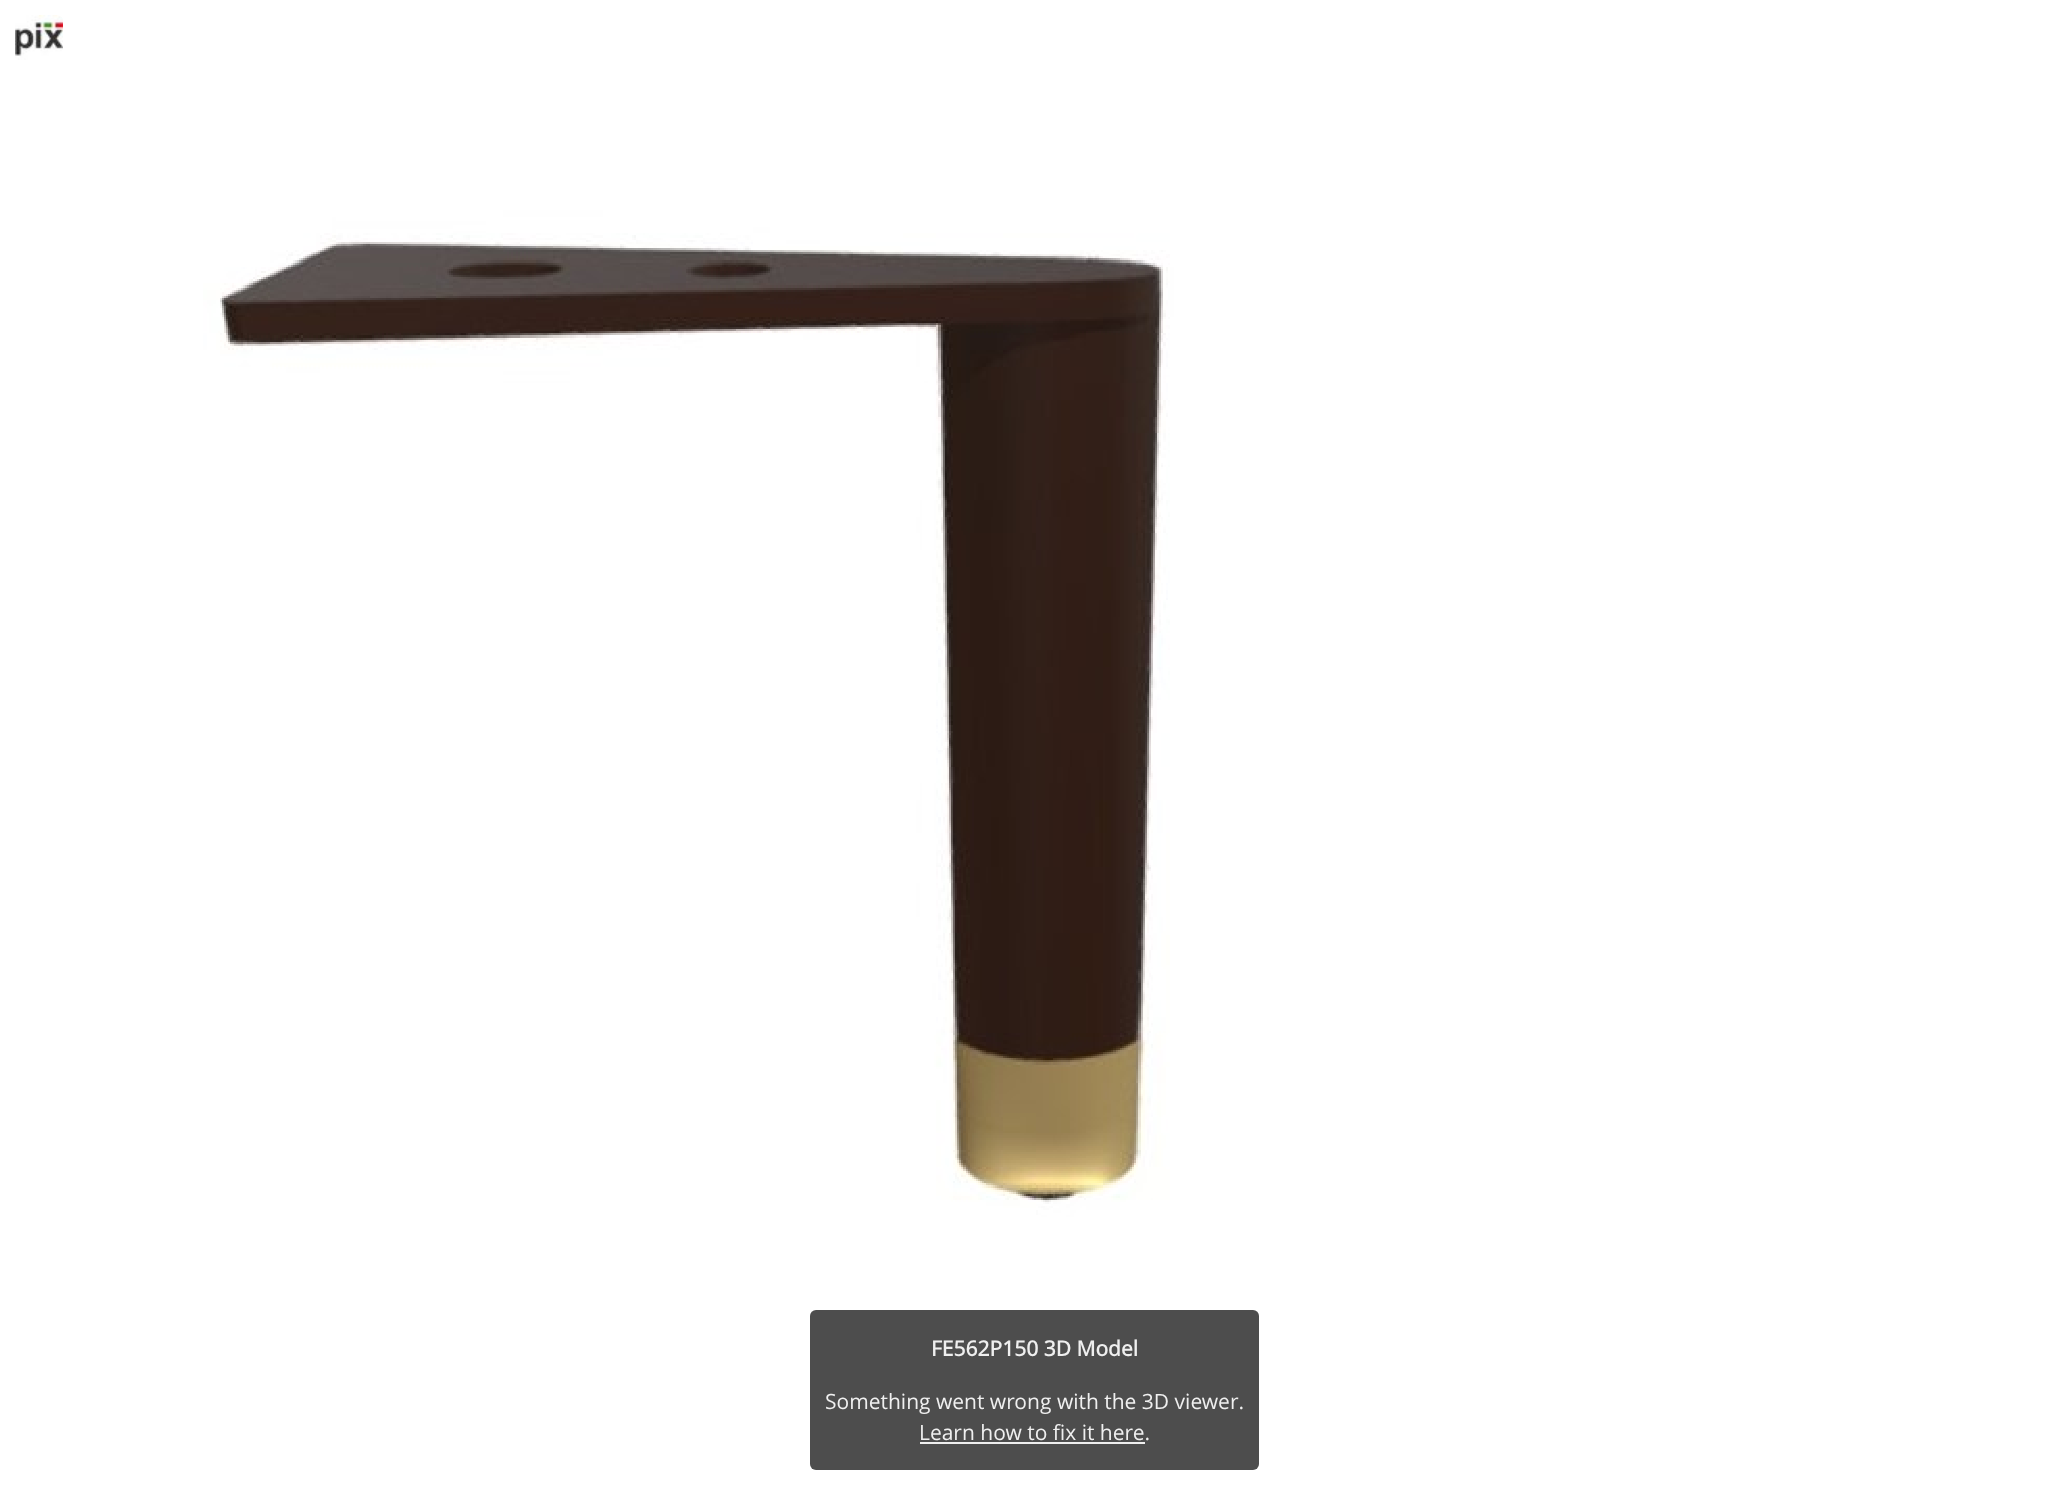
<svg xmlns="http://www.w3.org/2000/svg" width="2069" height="1500">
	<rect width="100%" height="100%" fill="#FFFFFF" />
	<image x="0" y="0" width="2069" height="1500" href="assets/img2.png" />
	<image x="15" y="15" width="48" height="45" href="assets/img1.png" />
	<rect x="810" y="1310" width="449" height="160" rx="6" fill="#4D4D4D" />
	<text x="931" y="1356" font-family="Open Sans" font-size="21" font-weight="700" fill="#EFEFEF">FE562P150 3D Model</text>
	<g font-family="Open Sans" font-size="21" fill="#EFEFEF">
		<text x="825" y="1409">Something went wrong with the 3D viewer.</text>
		<text x="919" y="1440">Learn how to fix it here.</text>
	</g>
	<rect x="920" y="1442" width="225" height="2" fill="#EFEFEF" />
</svg>
